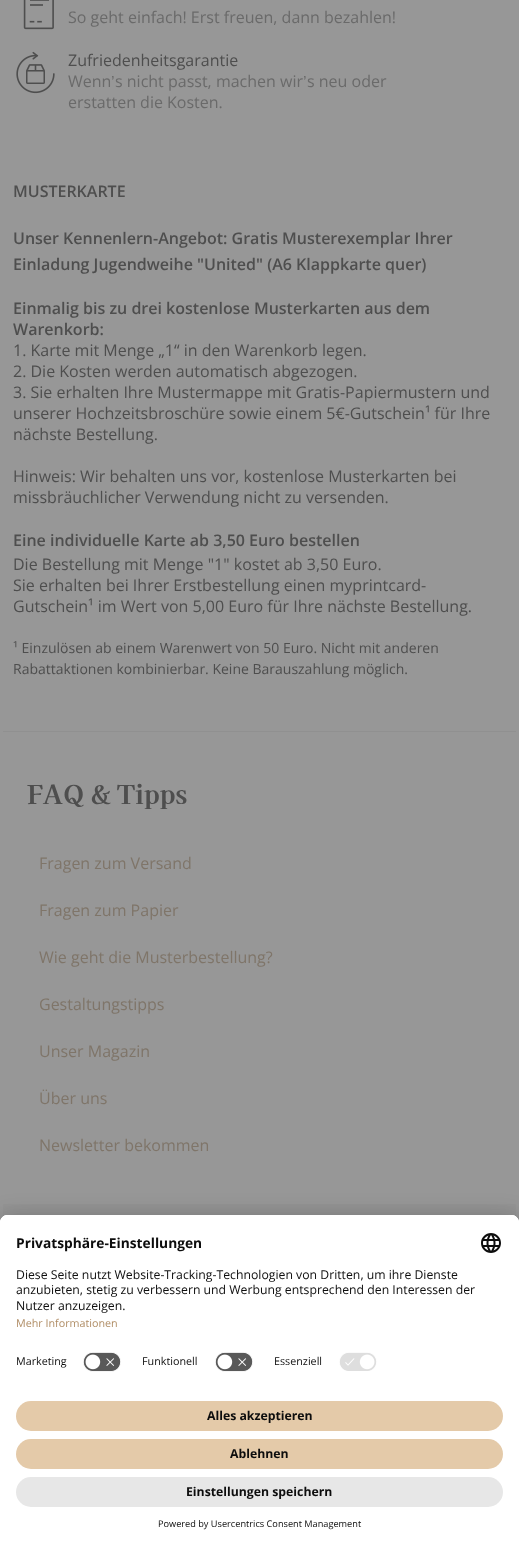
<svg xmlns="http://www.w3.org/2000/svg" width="519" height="1546">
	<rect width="100%" height="100%" fill="#979797" />
	<image x="23" y="0" width="31" height="30" href="assets/img1.png" />
	<text x="68" y="23" font-family="Open Sans" font-size="16" fill="#6A6A6A">So geht einfach! Erst freuen, dann bezahlen!</text>
	<image x="16" y="51" width="39" height="43" href="assets/img2.png" />
	<text x="68" y="66" font-family="Open Sans" font-size="16" fill="#4E4E4E">Zufriedenheitsgarantie</text>
	<text x="68" y="87" font-family="Open Sans" font-size="16" fill="#6A6A6A">Wenn</text>
	<text x="111" y="87" font-family="Liberation Sans" font-size="16" fill="#6A6A6A">’</text>
	<text x="115" y="87" font-family="Open Sans" font-size="16" fill="#6A6A6A">s nicht passt, machen wir</text>
	<text x="303" y="87" font-family="Liberation Sans" font-size="16" fill="#6A6A6A">’</text>
	<g font-family="Open Sans" font-size="16" fill="#6A6A6A">
		<text x="307" y="87">s neu oder</text>
		<text x="68" y="108">erstatten die Kosten.</text>
	</g>
	<g font-family="Open Sans" font-size="16" font-weight="600" fill="#4E4E4E">
		<text x="13" y="197">MUSTERKARTE</text>
		<text x="13" y="244">Unser Kennenlern-Angebot: Gratis Musterexemplar Ihrer</text>
		<text x="13" y="270">Einladung Jugendweihe "United" (A6 Klappkarte quer)</text>
		<text x="13" y="314">Einmalig bis zu drei kostenlose Musterkarten aus dem</text>
		<text x="13" y="335">Warenkorb:</text>
	</g>
	<g font-family="Open Sans" font-size="16" fill="#4E4E4E">
		<text x="13" y="356">1. Karte mit Menge „1“ in den Warenkorb legen.</text>
		<text x="13" y="377">2. Die Kosten werden automatisch abgezogen.</text>
		<text x="13" y="398">3. Sie erhalten Ihre Mustermappe mit Gratis-Papiermustern und</text>
		<text x="13" y="419">unserer Hochzeitsbroschüre sowie einem 5€-Gutschein¹ für Ihre</text>
		<text x="13" y="440">nächste Bestellung.</text>
		<text x="13" y="482">Hinweis: Wir behalten uns vor, kostenlose Musterkarten bei</text>
		<text x="13" y="503">missbräuchlicher Verwendung nicht zu versenden.</text>
	</g>
	<text x="13" y="546" font-family="Open Sans" font-size="16" font-weight="600" fill="#4E4E4E">Eine individuelle Karte ab 3,50 Euro bestellen</text>
	<g font-family="Open Sans" font-size="16" fill="#4E4E4E">
		<text x="13" y="570">Die Bestellung mit Menge "1" kostet ab 3,50 Euro.</text>
		<text x="13" y="591">Sie erhalten bei Ihrer Erstbestellung einen myprintcard-</text>
		<text x="13" y="612">Gutschein¹ im Wert von 5,00 Euro für Ihre nächste Bestellung.</text>
	</g>
	<g font-family="Open Sans" font-size="14" fill="#4E4E4E">
		<text x="13" y="653">¹ Einzulösen ab einem Warenwert von 50 Euro. Nicht mit anderen</text>
		<text x="13" y="674">Rabattaktionen kombinierbar. Keine Barauszahlung möglich.</text>
	</g>
	<rect x="3" y="731" width="513" height="1" fill="#909090" />
	<text x="27" y="804" font-family="Kaisei Tokumin" font-size="26" font-weight="800" fill="#4E4E4E">FAQ &amp; Tipps</text>
	<g font-family="Open Sans" font-size="16" fill="#7F7569">
		<text x="39" y="869">Fragen zum Versand</text>
		<text x="39" y="916">Fragen zum Papier</text>
		<text x="39" y="963">Wie geht die Musterbestellung?</text>
		<text x="39" y="1010">Gestaltungstipps</text>
		<text x="39" y="1057">Unser Magazin</text>
		<text x="39" y="1104">Über uns</text>
		<text x="39" y="1151">Newsletter bekommen</text>
	</g>
	<rect x="3" y="1204" width="513" height="13" fill="#949494" />
	<rect x="0" y="1235" width="519" height="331" rx="8" fill="#000000" fill-opacity="0.3" filter="blur(14px)" />
	<rect x="0" y="1220" width="519" height="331" rx="8" fill="#000000" fill-opacity="0.22" filter="blur(13px)" />
	<path d="M8 1215H511C515.5 1215 519 1218.5 519 1223V1546H0V1223C0 1218.5 3.5 1215 8 1215Z" fill="#FFFFFF" />
	<path d="M8 1215H511C515.5 1215 519 1218.5 519 1223V1389H0V1223C0 1218.5 3.5 1215 8 1215Z" fill="#FFFFFF" />
	<path d="M8 1215H511C515.5 1215 519 1218.5 519 1223V1345H0V1223C0 1218.5 3.5 1215 8 1215Z" fill="#FFFFFF" />
	<text x="16" y="1248" font-family="Open Sans" font-size="13.75" font-weight="700" fill="#0D0D0D">Privatsphäre-Einstellungen</text>
	<image x="481" y="1233" width="20" height="20" href="assets/img3.png" />
	<g font-family="Open Sans" font-size="12.25" fill="#0D0D0D">
		<text x="16" y="1279">Diese Seite nutzt Website-Tracking-Technologien von Dritten, um ihre Dienste</text>
		<text x="16" y="1294">anzubieten, stetig zu verbessern und Werbung entsprechend den Interessen der</text>
		<text x="16" y="1310">Nutzer anzuzeigen.</text>
	</g>
	<text x="16" y="1327" font-family="Open Sans" font-size="10.75" fill="#B08D65">Mehr Informationen</text>
	<text x="16" y="1365" font-family="Open Sans" font-size="10.75" fill="#0D0D0D">Marketing</text>
	<image x="83" y="1352" width="38" height="20" href="assets/img4.png" />
	<text x="142" y="1365" font-family="Open Sans" font-size="10.75" fill="#0D0D0D">Funktionell</text>
	<image x="215" y="1352" width="38" height="20" href="assets/img4.png" />
	<text x="274" y="1365" font-family="Open Sans" font-size="10.75" fill="#0D0D0D">Essenziell</text>
	<image x="339" y="1352" width="38" height="19" href="assets/img5.png" />
	<rect x="16" y="1401" width="487" height="30" rx="15" fill="#E4CAA9" />
	<text x="207" y="1420" font-family="Open Sans" font-size="12.25" font-weight="700" fill="#0D0D0D">Alles akzeptieren</text>
	<rect x="16" y="1439" width="487" height="30" rx="15" fill="#E4CAA9" />
	<text x="230" y="1458" font-family="Open Sans" font-size="12.25" font-weight="700" fill="#0D0D0D">Ablehnen</text>
	<rect x="16" y="1477" width="487" height="30" rx="15" fill="#E7E7E7" />
	<text x="186" y="1496" font-family="Open Sans" font-size="12.25" font-weight="700" fill="#0D0D0D">Einstellungen speichern</text>
	<text x="158" y="1527" font-family="Open Sans" font-size="9.2" fill="#0D0D0D">Powered by Usercentrics Consent Management</text>
</svg>
